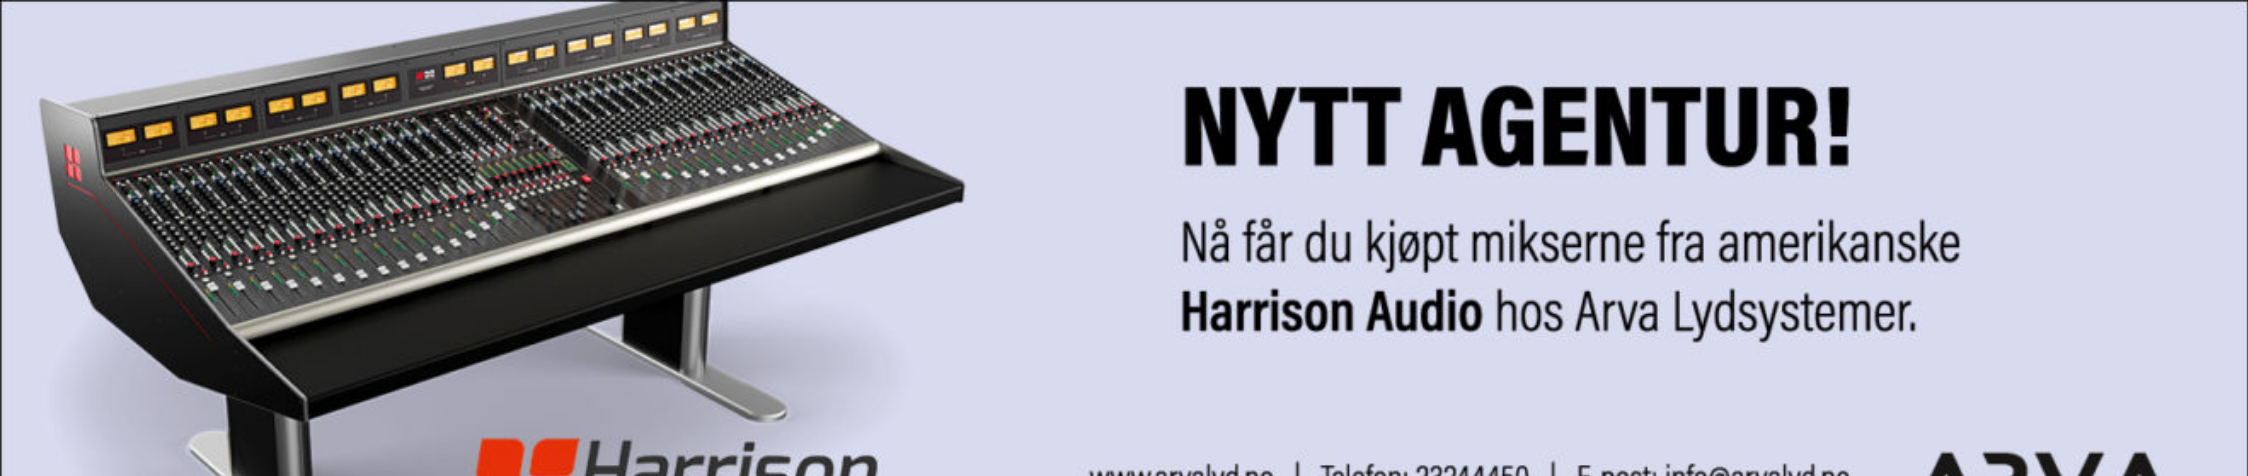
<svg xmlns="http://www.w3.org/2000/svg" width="2248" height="476">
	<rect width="100%" height="100%" fill="#FFFFFF" />
	<image x="0" y="0" width="2248" height="476" href="assets/img1.png" />
</svg>
